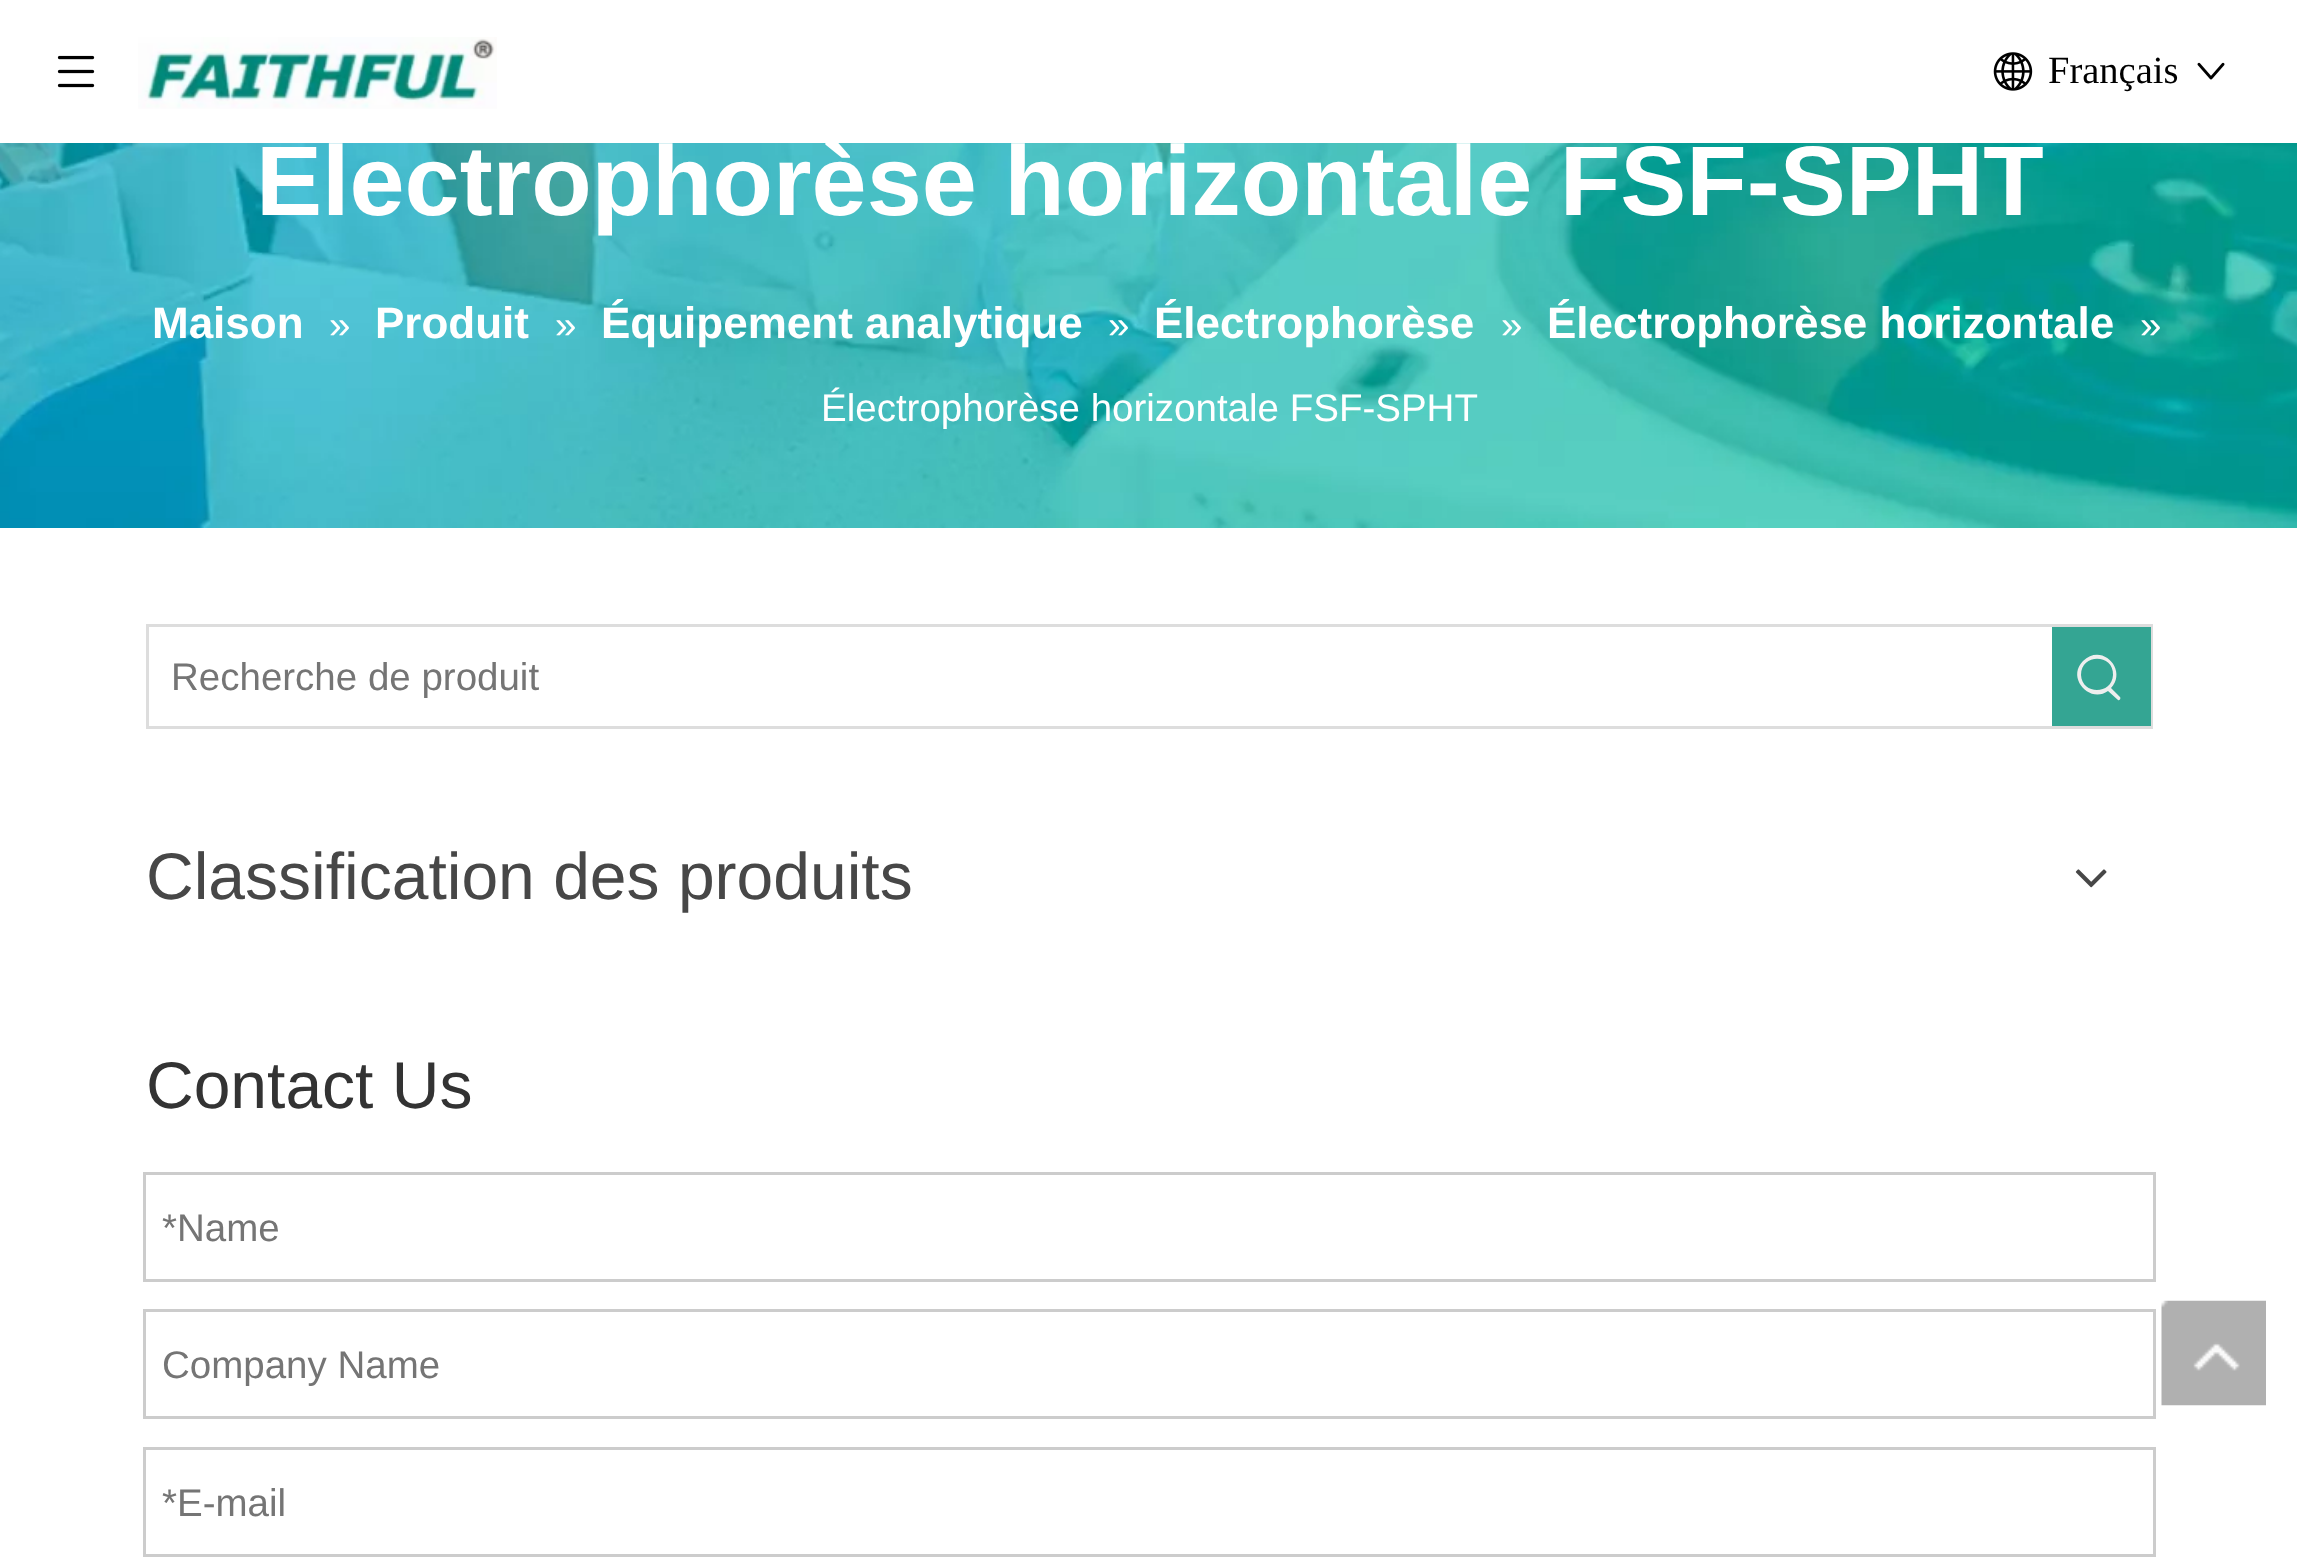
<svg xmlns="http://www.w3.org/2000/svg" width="2297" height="1559">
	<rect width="100%" height="100%" fill="#FFFFFF" />
	<image x="57" y="55" width="38" height="33" href="assets/img1.png" />
	<image x="138" y="37" width="359" height="72" href="assets/img2.png" />
	<image x="1993" y="52" width="40" height="39" href="assets/img3.png" />
	<text x="2048" y="83" font-family="Liberation Serif" font-size="38.5" fill="#000000">Français</text>
	<image x="2197" y="62" width="28" height="18" href="assets/img4.png" />
	<image x="0" y="143" width="2297" height="385" href="assets/img5.png" />
	<text x="256" y="215" font-family="Liberation Sans" font-size="99" font-weight="700" fill="#FFFFFF">Électrophorèse horizontale FSF-SPHT</text>
	<text x="152" y="338" font-family="Liberation Sans" font-size="44" font-weight="700" fill="#FFFFFF">Maison</text>
	<text x="329" y="338" font-family="Liberation Sans" font-size="38.5" fill="#FFFFFF">»</text>
	<text x="375" y="338" font-family="Liberation Sans" font-size="44" font-weight="700" fill="#FFFFFF">Produit</text>
	<text x="555" y="338" font-family="Liberation Sans" font-size="38.5" fill="#FFFFFF">»</text>
	<text x="601" y="338" font-family="Liberation Sans" font-size="44" font-weight="700" fill="#FFFFFF">Équipement analytique</text>
	<text x="1108" y="338" font-family="Liberation Sans" font-size="38.5" fill="#FFFFFF">»</text>
	<text x="1154" y="338" font-family="Liberation Sans" font-size="44" font-weight="700" fill="#FFFFFF">Électrophorèse</text>
	<text x="1501" y="338" font-family="Liberation Sans" font-size="38.5" fill="#FFFFFF">»</text>
	<text x="1547" y="338" font-family="Liberation Sans" font-size="44" font-weight="700" fill="#FFFFFF">Électrophorèse horizontale</text>
	<g font-family="Liberation Sans" font-size="38.5" fill="#FFFFFF">
		<text x="2140" y="338">»</text>
		<text x="821" y="421">Électrophorèse horizontale FSF-SPHT</text>
	</g>
	<rect x="147.5" y="625.5" width="2004" height="102" fill="none" stroke="#DDDDDD" stroke-width="3" />
	<text x="171" y="690" font-family="Liberation Sans" font-size="38.5" fill="#757575">Recherche de produit</text>
	<rect x="2052" y="627" width="99" height="99" fill="#34A593" />
	<path d="M2081 675C2081 653 2114 654 2113 675C2112 695 2082 695 2081 675ZM2120 697L2111 688C2128 670 2102 642 2083 661C2066 678 2090 704 2108 691L2118 700C2120 701 2121 698 2120 697" fill="#EEEEEE" />
	<text x="146" y="899" font-family="Liberation Sans" font-size="66" fill="#474747">Classification des produits</text>
	<image x="2075" y="869" width="32" height="19" href="assets/img6.png" />
	<text x="146" y="1108" font-family="Liberation Sans" font-size="66" fill="#333333">Contact Us</text>
	<rect x="144.5" y="1173.5" width="2010" height="107" fill="none" stroke="#CCCCCC" stroke-width="3" />
	<text x="162" y="1241" font-family="Liberation Sans" font-size="38.5" fill="#757575">*Name</text>
	<rect x="144.5" y="1310.5" width="2010" height="107" fill="none" stroke="#CCCCCC" stroke-width="3" />
	<text x="162" y="1378" font-family="Liberation Sans" font-size="38.5" fill="#757575">Company Name</text>
	<rect x="144.5" y="1448.5" width="2010" height="107" fill="none" stroke="#CCCCCC" stroke-width="3" />
	<text x="162" y="1516" font-family="Liberation Sans" font-size="38.5" fill="#757575">*E-mail</text>
	<image x="2161" y="1300" width="105" height="106" href="assets/img7.png" />
</svg>
